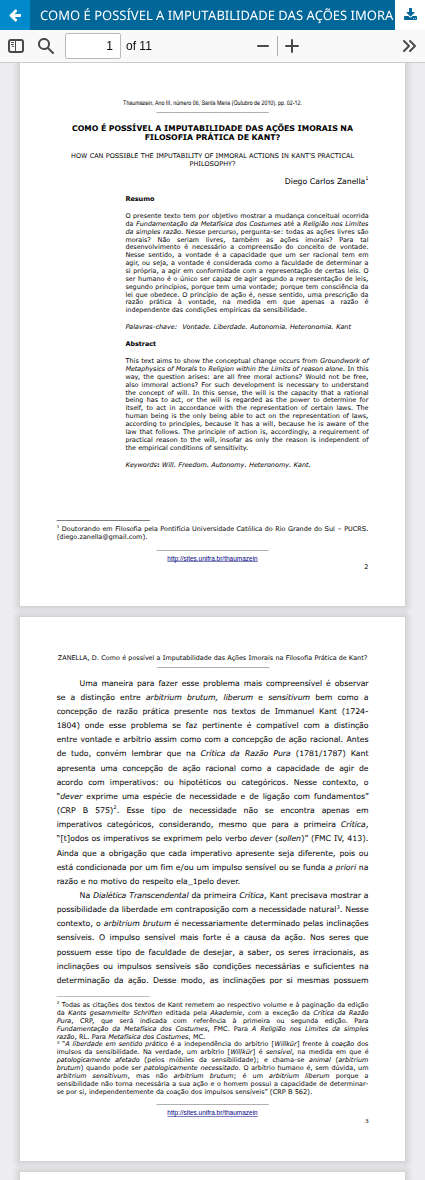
<svg xmlns="http://www.w3.org/2000/svg" width="425" height="1180">
	<rect width="100%" height="100%" fill="#FFFFFF" />
	<rect x="30" y="0" width="365" height="30" fill="#006798" />
	<rect x="0" y="0" width="30" height="30" fill="#008ACB" />
	<image x="9" y="9" width="12" height="13" href="assets/img1.png" />
	<text x="40" y="20" font-family="Noto Sans" font-size="13" fill="#FFFFFF">COMO É POSSÍVEL A IMPUTABILIDADE DAS AÇÕES IMORA</text>
	<image x="404" y="8" width="13" height="12" href="assets/img2.png" />
	<image x="0" y="30" width="425" height="1150" href="assets/img3.png" />
</svg>
